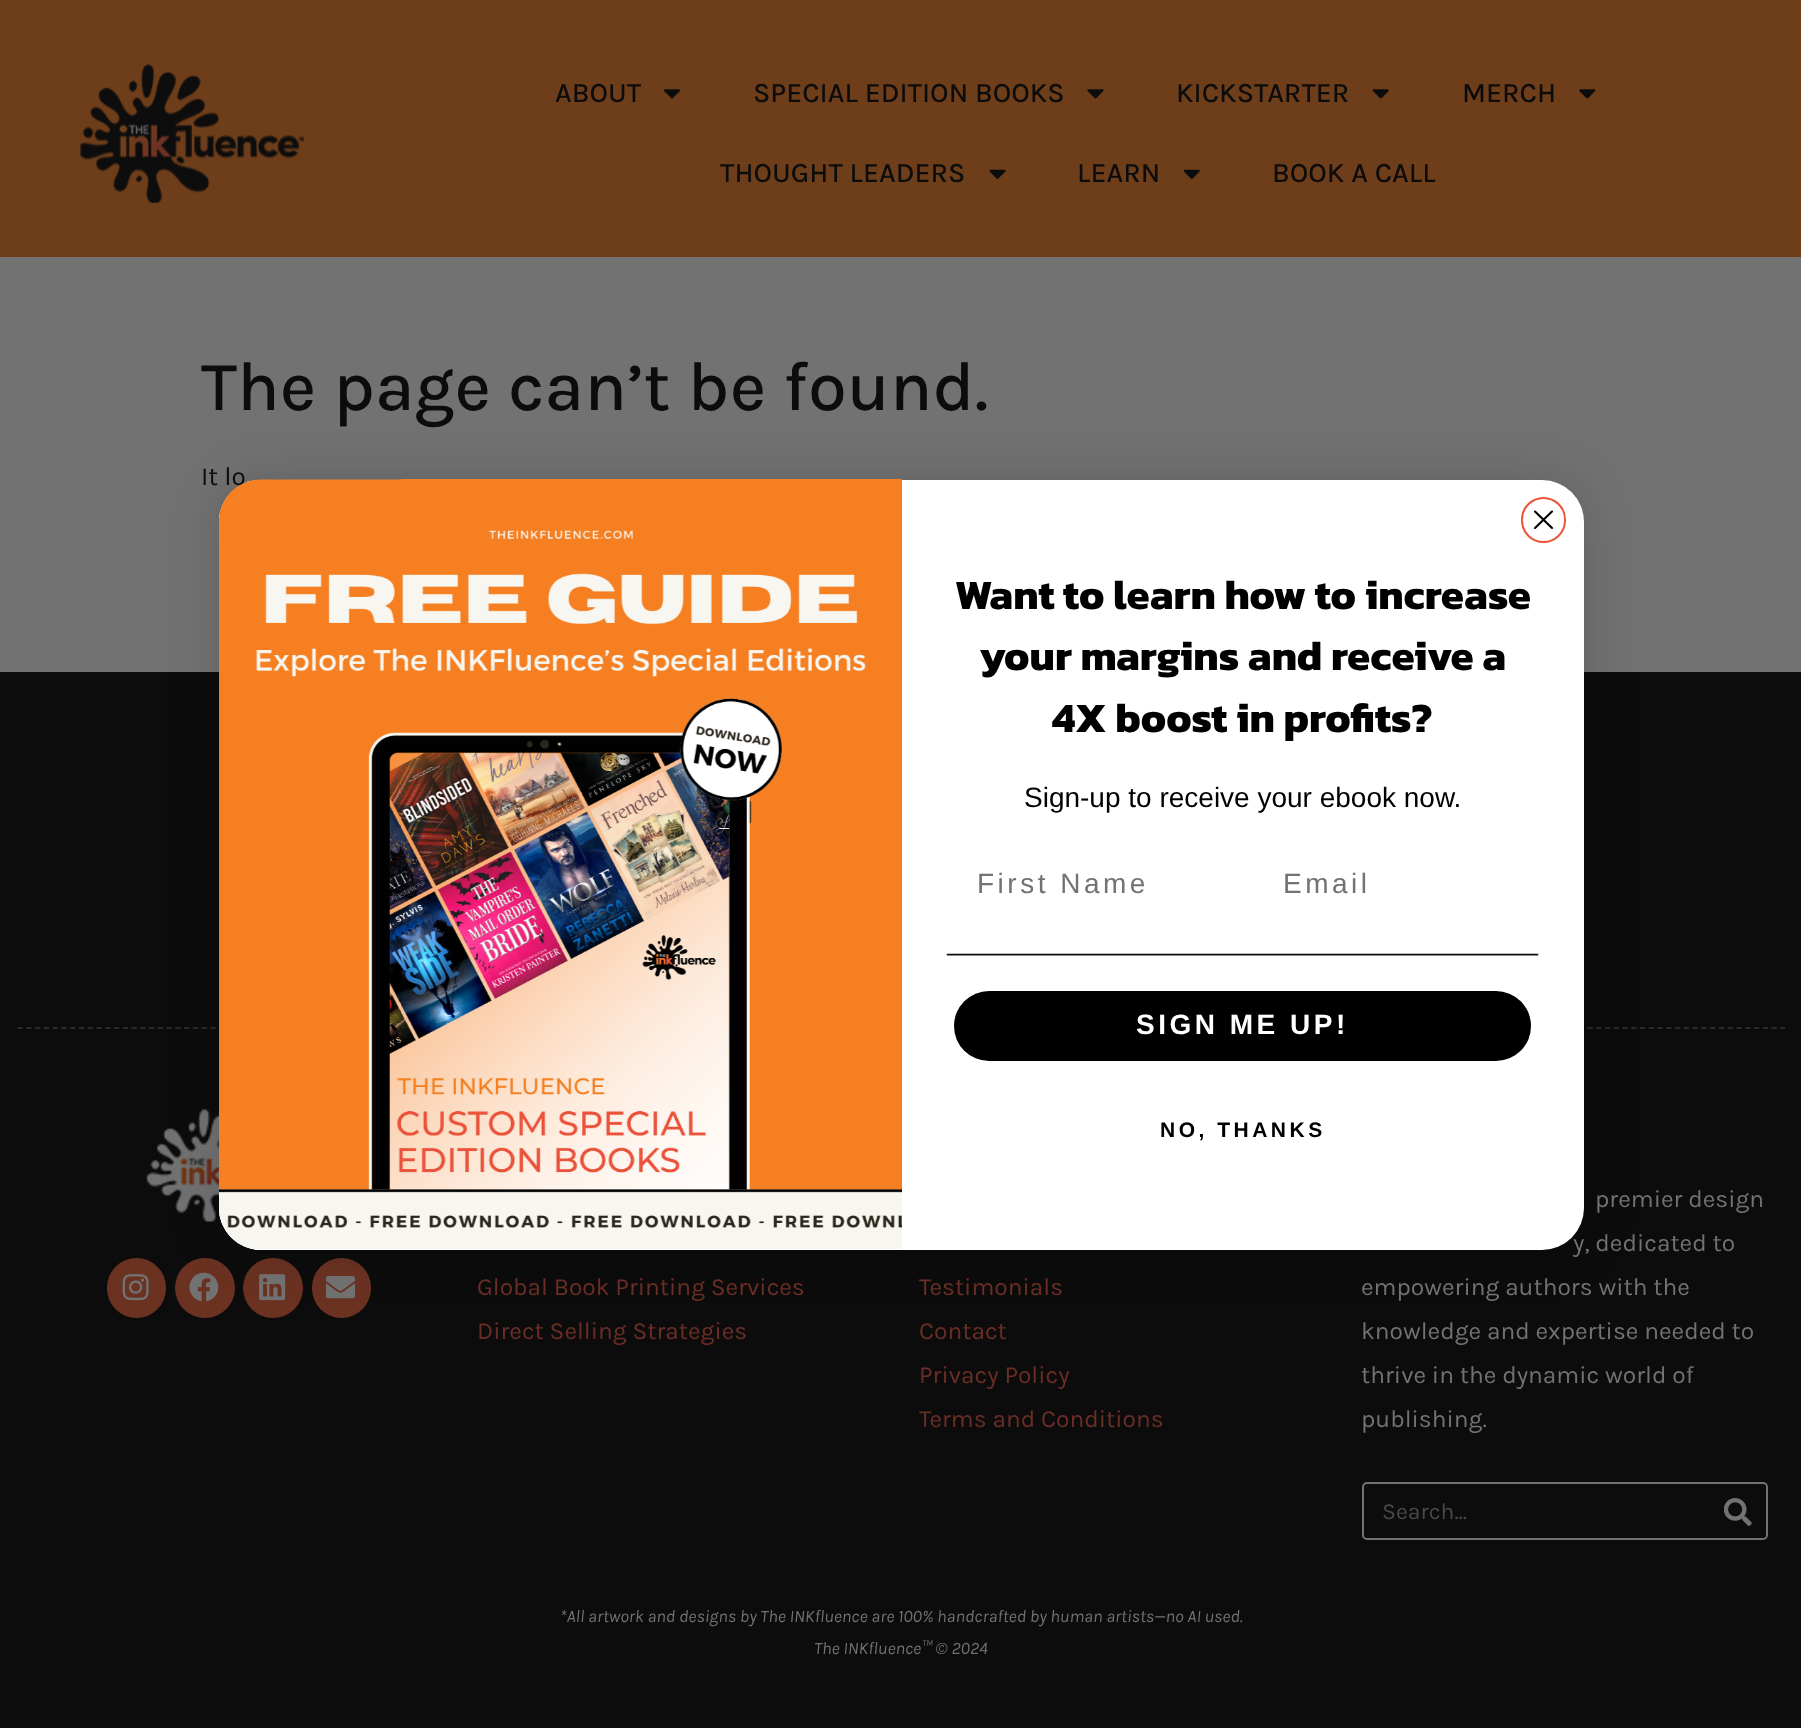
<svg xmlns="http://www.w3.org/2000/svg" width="1801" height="1728">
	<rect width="100%" height="100%" fill="#727272" />
	<rect x="0" y="0" width="1801" height="257" fill="#6E3E1A" />
	<image x="79" y="64" width="225" height="139" href="assets/img1.png" />
	<text x="555" y="102" font-family="Karla" font-size="28" font-weight="500" fill="#0C0C0C">ABOUT</text>
	<image x="663" y="89" width="18" height="10" href="assets/img2.png" />
	<text x="753" y="102" font-family="Karla" font-size="28" font-weight="500" fill="#0C0C0C">SPECIAL EDITION BOOKS</text>
	<image x="1087" y="89" width="17" height="10" href="assets/img3.png" />
	<text x="1176" y="102" font-family="Karla" font-size="28" font-weight="500" fill="#0C0C0C">KICKSTARTER</text>
	<image x="1372" y="89" width="17" height="10" href="assets/img4.png" />
	<text x="1462" y="102" font-family="Karla" font-size="28" font-weight="500" fill="#0C0C0C">MERCH</text>
	<image x="1579" y="89" width="17" height="10" href="assets/img5.png" />
	<text x="720" y="182" font-family="Karla" font-size="28" font-weight="500" fill="#0C0C0C">THOUGHT LEADERS</text>
	<image x="989" y="169" width="17" height="10" href="assets/img6.png" />
	<text x="1077" y="182" font-family="Karla" font-size="28" font-weight="500" fill="#0C0C0C">LEARN</text>
	<image x="1183" y="169" width="17" height="10" href="assets/img7.png" />
	<text x="1272" y="182" font-family="Karla" font-size="28" font-weight="500" fill="#0C0C0C">BOOK A CALL</text>
	<text x="201" y="410" font-family="Karla" font-size="70" font-weight="500" fill="#0C0C0C">The page can’t be found.</text>
	<text x="201" y="485" font-family="Karla" font-size="26" fill="#0C0C0C">It lo</text>
	<rect x="0" y="672" width="1801" height="1056" fill="#0C0C0C" />
	<path d="M17.5 1028H1785" fill="none" stroke="#2A2A2A" stroke-width="1.8" stroke-dasharray="5.25 3.52" />
	<image x="146" y="1109" width="73" height="113" href="assets/img10.png" />
	<rect x="107" y="1258" width="59" height="60" rx="29.5" fill="#6B3222" />
	<image x="122" y="1274" width="27" height="27" href="assets/img11.png" />
	<circle cx="205" cy="1288" r="30" fill="#6B3222" />
	<image x="189" y="1272" width="30" height="30" href="assets/img12.png" />
	<circle cx="273" cy="1288" r="30" fill="#6B3222" />
	<image x="259" y="1274" width="27" height="27" href="assets/img13.png" />
	<rect x="312" y="1258" width="59" height="60" rx="29.5" fill="#6B3222" />
	<image x="326" y="1276" width="29" height="23" href="assets/img14.png" />
	<rect x="219" y="480" width="1365" height="770" rx="42" fill="#000000" fill-opacity="0.15" filter="blur(26px)" />
	<text x="1573" y="1251" font-family="Karla" font-size="24.5" fill="#727272">y, dedicated to</text>
	<rect x="219" y="480" width="1365" height="770" rx="42" fill="#FFFFFF" />
	<rect x="1522" y="498" width="43" height="44" rx="21.5" fill="none" stroke="#EC533B" stroke-width="2" />
	<path d="M1535 511.5L1552 528M1535 528L1552 511.5Z" fill="none" stroke="#000000" stroke-width="2.1" stroke-linecap="round" stroke-linejoin="round" />
	<path d="M261 480H901V1250H261C238 1250 219 1231 219 1208V522C219 499 238 480 261 480Z" fill="#FFFFFF" />
	<image x="219" y="479" width="683" height="770" href="assets/img8.png" />
	<g font-family="Kanit" font-size="42" font-weight="700" fill="#000000">
		<text x="955" y="609">Want to learn how to increase</text>
		<text x="979" y="670">your margins and receive a</text>
		<text x="1052" y="732">4X boost in profits?</text>
	</g>
	<text x="1024" y="807" font-family="Liberation Sans" font-size="28" fill="#000000">Sign-up to receive your ebook now.</text>
	<g font-family="Liberation Sans" font-size="28" letter-spacing="3.5" fill="#727272">
		<text x="977" y="893">First Name</text>
		<text x="1283" y="893">Email</text>
	</g>
	<image x="946" y="953" width="593" height="3" href="assets/img9.png" />
	<rect x="954" y="991" width="577" height="70" rx="35" fill="#000000" />
	<text x="1136" y="1034" font-family="Liberation Sans" font-size="28" font-weight="700" letter-spacing="3.5" fill="#FFFFFF">SIGN ME UP!</text>
	<text x="1160" y="1137" font-family="Liberation Sans" font-size="21" font-weight="700" letter-spacing="3.5" fill="#000000">NO, THANKS</text>
	<g font-family="Karla" font-size="24.5" fill="#6B2E24">
		<text x="477" y="1295">Global Book Printing Services</text>
		<text x="477" y="1339">Direct Selling Strategies</text>
		<text x="919" y="1295">Testimonials</text>
		<text x="919" y="1339">Contact</text>
		<text x="919" y="1383">Privacy Policy</text>
		<text x="919" y="1427">Terms and Conditions</text>
	</g>
	<g font-family="Karla" font-size="24.5" fill="#727272">
		<text x="1595" y="1207">premier design</text>
		<text x="1361" y="1295">empowering authors with the</text>
		<text x="1361" y="1339">knowledge and expertise needed to</text>
		<text x="1361" y="1383">thrive in the dynamic world of</text>
		<text x="1361" y="1427">publishing.</text>
	</g>
	<rect x="1363" y="1483" width="404" height="56" rx="4" fill="none" stroke="#727272" stroke-width="2" />
	<text x="1382" y="1519" font-family="Karla" font-size="23" fill="#494949">Search...</text>
	<path d="M1708 1484H1762C1764 1484 1766 1486 1766 1488V1534C1766 1536 1764 1538 1762 1538H1708Z" fill="#0C0C0C" />
	<image x="1724" y="1498" width="28" height="28" href="assets/img15.png" />
	<g font-family="Karla" font-size="17.5" font-style="italic" fill="#727272">
		<text x="560" y="1622">*All artwork and designs by The INKfluence are 100% handcrafted by human artists—no AI used.</text>
		<text x="814" y="1654">The INKfluence™ © 2024</text>
	</g>
</svg>
